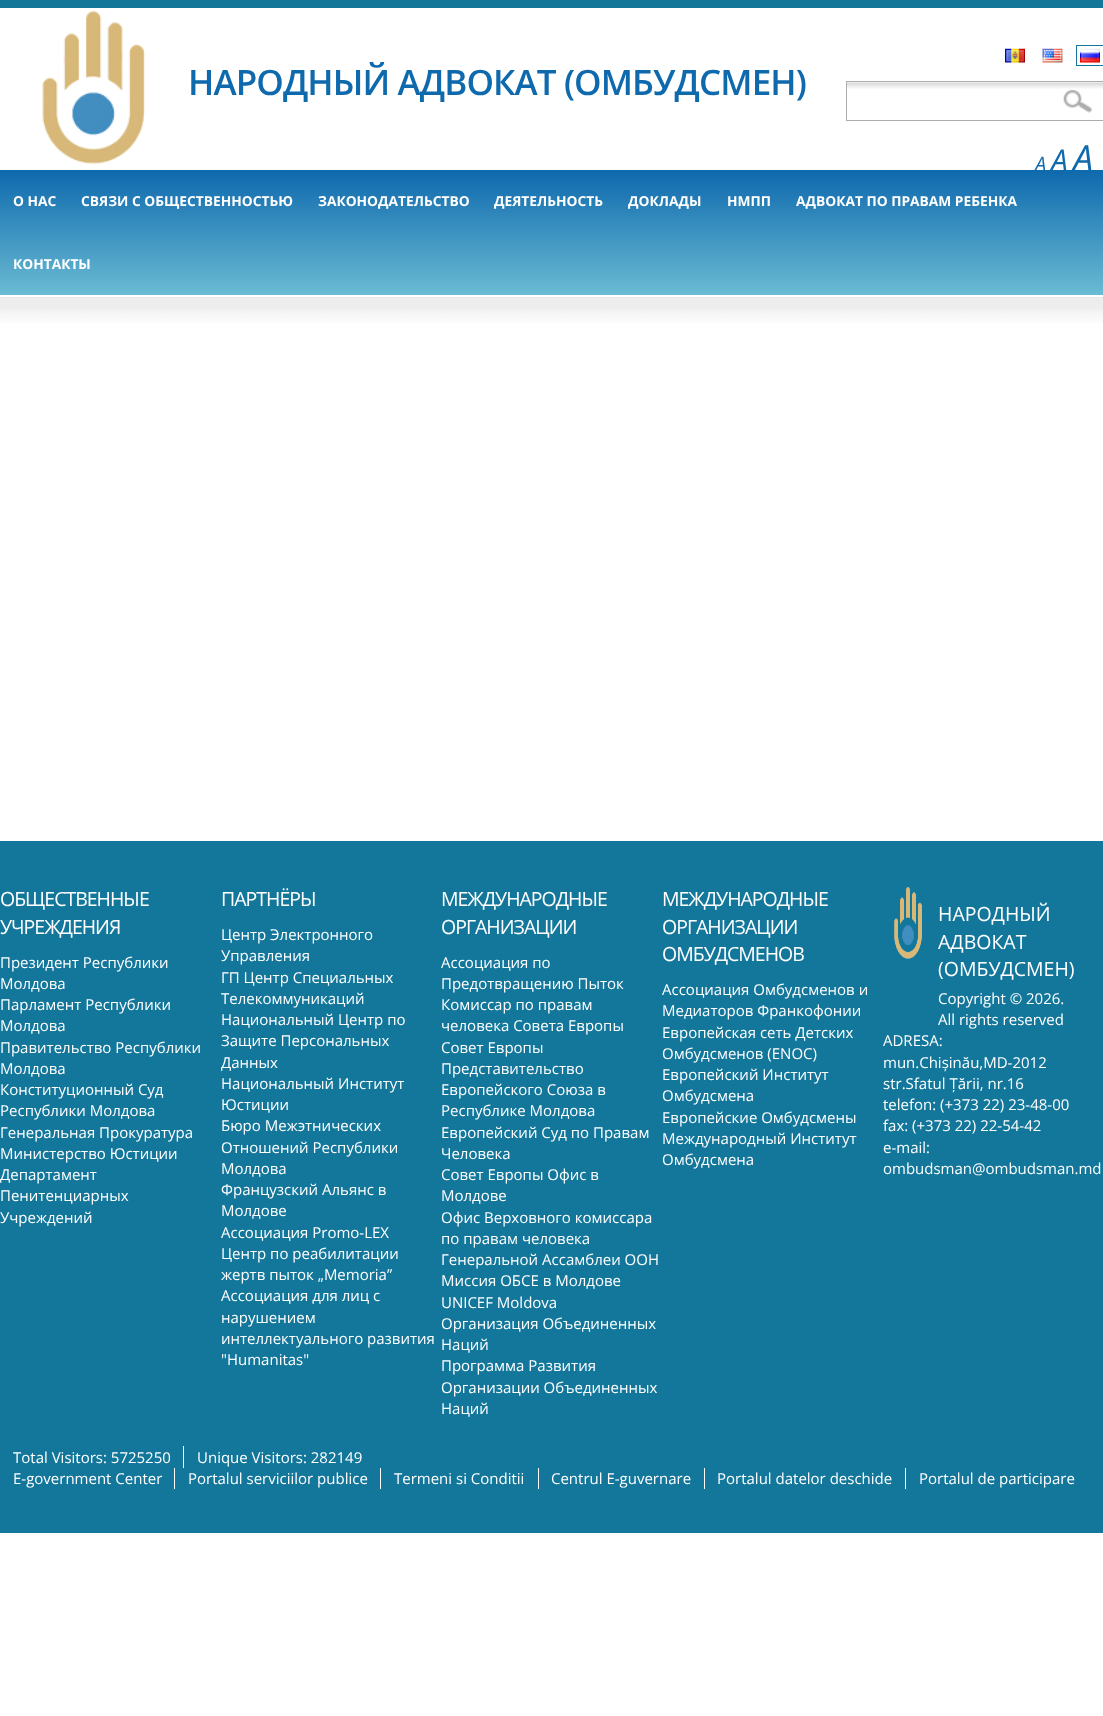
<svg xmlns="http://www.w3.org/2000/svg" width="1103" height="1716">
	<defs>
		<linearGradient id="g1" gradientUnits="userSpaceOnUse" x1="552" y1="170" x2="552" y2="295"><stop offset="0" stop-color="#0E69AD" /><stop offset="1" stop-color="#6ABBD3" /></linearGradient>
	</defs>
	<rect width="100%" height="100%" fill="#FFFFFF" />
	<rect x="0" y="0" width="1103" height="8" fill="#13779A" />
	<image x="1005" y="48" width="20" height="15" href="assets/img1.png" />
	<image x="1042" y="48" width="21" height="15" href="assets/img2.png" />
	<rect x="1076.5" y="45.5" width="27" height="20" fill="none" stroke="#13779B" />
	<image x="1080" y="48" width="20" height="15" href="assets/img3.png" />
	<image x="42" y="11" width="104" height="153" href="assets/img4.png" />
	<text x="188" y="95" font-family="Open Sans" font-size="35" font-weight="600" letter-spacing="-0.9" fill="#0E69AD">НАРОДНЫЙ АДВОКАТ (ОМБУДСМЕН)</text>
	<image x="847" y="82" width="256" height="7" href="assets/img5.png" />
	<rect x="846.5" y="81.5" width="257" height="39" fill="none" stroke="#ACACAC" />
	<image x="1063" y="89" width="30" height="24" href="assets/img6.png" />
	<rect x="0" y="170" width="1103" height="125" fill="url(#g1)" />
	<text x="1035" y="171" font-family="Open Sans" font-size="20" font-style="italic" fill="#0E69AD">A</text>
	<text x="1051" y="171" font-family="Open Sans" font-size="30" font-style="italic" fill="#0E69AD">A</text>
	<text x="1073" y="171" font-family="Open Sans" font-size="36" font-style="italic" fill="#0E69AD">A</text>
	<g font-family="Open Sans" font-size="13.75" font-weight="700" fill="#FFFFFF">
		<text x="13" y="206">О НАС</text>
		<text x="81" y="206">СВЯЗИ С ОБЩЕСТВЕННОСТЬЮ</text>
		<text x="318" y="206">ЗАКОНОДАТЕЛЬСТВО</text>
		<text x="494" y="206">ДЕЯТЕЛЬНОСТЬ</text>
		<text x="628" y="206">ДОКЛАДЫ</text>
		<text x="727" y="206">НМПП</text>
		<text x="796" y="206">АДВОКАТ ПО ПРАВАМ РЕБЕНКА</text>
		<text x="13" y="269">КОНТАКТЫ</text>
	</g>
	<image x="0" y="297" width="1103" height="1" href="assets/img7.png" />
	<image x="0" y="297" width="1103" height="26" href="assets/img8.png" />
	<rect x="0" y="841" width="1103" height="692" fill="#13779B" />
	<g font-family="Open Sans" font-size="19.5" letter-spacing="-1" fill="#FFFFFF">
		<text x="0" y="906">ОБЩЕСТВЕННЫЕ</text>
		<text x="0" y="934">УЧРЕЖДЕНИЯ</text>
	</g>
	<g font-family="Open Sans" font-size="15" fill="#FFFFFF">
		<text x="0" y="968">Президент Республики</text>
		<text x="0" y="989">Молдова</text>
		<text x="0" y="1010">Парламент Республики</text>
		<text x="0" y="1031">Молдова</text>
		<text x="0" y="1053">Правительство Республики</text>
		<text x="0" y="1074">Молдова</text>
		<text x="0" y="1095">Конституционный Суд</text>
		<text x="0" y="1116">Республики Молдова</text>
		<text x="0" y="1138">Генеральная Прокуратура</text>
		<text x="0" y="1159">Министерство Юстиции</text>
		<text x="0" y="1180">Департамент</text>
		<text x="0" y="1201">Пенитенциарных</text>
		<text x="0" y="1223">Учреждений</text>
	</g>
	<text x="221" y="906" font-family="Open Sans" font-size="19.5" letter-spacing="-1" fill="#FFFFFF">ПАРТНЁРЫ</text>
	<g font-family="Open Sans" font-size="15" fill="#FFFFFF">
		<text x="221" y="940">Центр Электронного</text>
		<text x="221" y="961">Управления</text>
		<text x="221" y="983">ГП Центр Специальных</text>
		<text x="221" y="1004">Телекоммуникаций</text>
		<text x="221" y="1025">Национальный Центр по</text>
		<text x="221" y="1046">Защите Персональных</text>
		<text x="221" y="1068">Данных</text>
		<text x="221" y="1089">Национальный Институт</text>
		<text x="221" y="1110">Юстиции</text>
		<text x="221" y="1131">Бюро Межэтнических</text>
		<text x="221" y="1153">Отношений Республики</text>
		<text x="221" y="1174">Молдова</text>
		<text x="221" y="1195">Французский Альянс в</text>
		<text x="221" y="1216">Молдове</text>
		<text x="221" y="1238">Ассоциация Promo-LEX</text>
		<text x="221" y="1259">Центр по реабилитации</text>
		<text x="221" y="1280">жертв пыток „Memoria”</text>
		<text x="221" y="1301">Ассоциация для лиц с</text>
		<text x="221" y="1323">нарушением</text>
		<text x="221" y="1344">интеллектуального развития</text>
		<text x="221" y="1365">"Humanitas"</text>
	</g>
	<g font-family="Open Sans" font-size="19.5" letter-spacing="-1" fill="#FFFFFF">
		<text x="441" y="906">МЕЖДУНАРОДНЫЕ</text>
		<text x="441" y="934">ОРГАНИЗАЦИИ</text>
	</g>
	<g font-family="Open Sans" font-size="15" fill="#FFFFFF">
		<text x="441" y="968">Ассоциация по</text>
		<text x="441" y="989">Предотвращению Пыток</text>
		<text x="441" y="1010">Комиссар по правам</text>
		<text x="441" y="1031">человека Совета Европы</text>
		<text x="441" y="1053">Совет Европы</text>
		<text x="441" y="1074">Представительство</text>
		<text x="441" y="1095">Европейского Союза в</text>
		<text x="441" y="1116">Республике Молдова</text>
		<text x="441" y="1138">Европейский Суд по Правам</text>
		<text x="441" y="1159">Человека</text>
		<text x="441" y="1180">Совет Европы Офис в</text>
		<text x="441" y="1201">Молдове</text>
		<text x="441" y="1223">Офис Верховного комиссара</text>
		<text x="441" y="1244">по правам человека</text>
		<text x="441" y="1265">Генеральной Ассамблеи ООН</text>
		<text x="441" y="1286">Миссия ОБСЕ в Молдове</text>
		<text x="441" y="1308">UNICEF Moldova</text>
		<text x="441" y="1329">Организация Объединенных</text>
		<text x="441" y="1350">Наций</text>
		<text x="441" y="1371">Программа Развития</text>
		<text x="441" y="1393">Организации Объединенных</text>
		<text x="441" y="1414">Наций</text>
	</g>
	<g font-family="Open Sans" font-size="19.5" letter-spacing="-1" fill="#FFFFFF">
		<text x="662" y="906">МЕЖДУНАРОДНЫЕ</text>
		<text x="662" y="934">ОРГАНИЗАЦИИ</text>
		<text x="662" y="961">ОМБУДСМЕНОВ</text>
	</g>
	<g font-family="Open Sans" font-size="15" fill="#FFFFFF">
		<text x="662" y="995">Ассоциация Омбудсменов и</text>
		<text x="662" y="1016">Медиаторов Франкофонии</text>
		<text x="662" y="1038">Европейская сеть Детских</text>
		<text x="662" y="1059">Омбудсменов (ENOC)</text>
		<text x="662" y="1080">Европейский Институт</text>
		<text x="662" y="1101">Омбудсмена</text>
		<text x="662" y="1123">Европейские Омбудсмены</text>
		<text x="662" y="1144">Международный Институт</text>
		<text x="662" y="1165">Омбудсмена</text>
	</g>
	<image x="894" y="887" width="28" height="72" href="assets/img9.png" />
	<g font-family="Open Sans" font-size="19.5" fill="#FFFFFF">
		<text x="938" y="921">НАРОДНЫЙ</text>
		<text x="938" y="949">АДВОКАТ</text>
		<text x="938" y="976">(ОМБУДСМЕН)</text>
	</g>
	<g font-family="Open Sans" font-size="15" fill="#FFFFFF">
		<text x="938" y="1004">Copyright © 2026.</text>
		<text x="938" y="1025">All rights reserved</text>
		<text x="883" y="1046">ADRESA:</text>
		<text x="883" y="1068">mun.Chișinău,MD-2012</text>
		<text x="883" y="1089">str.Sfatul Țării, nr.16</text>
		<text x="883" y="1110">telefon: (+373 22) 23-48-00</text>
		<text x="883" y="1131">fax: (+373 22) 22-54-42</text>
		<text x="883" y="1153">e-mail:</text>
		<text x="883" y="1174">ombudsman@ombudsman.md</text>
		<text x="13" y="1463">Total Visitors: 5725250</text>
	</g>
	<rect x="183" y="1446" width="1" height="22" fill="#FFFFFF" />
	<g font-family="Open Sans" font-size="15" fill="#FFFFFF">
		<text x="197" y="1463">Unique Visitors: 282149</text>
		<text x="13" y="1484">E-government Center</text>
	</g>
	<rect x="174" y="1468" width="1" height="21" fill="#FFFFFF" />
	<text x="188" y="1484" font-family="Open Sans" font-size="15" fill="#FFFFFF">Portalul serviciilor publice</text>
	<rect x="380" y="1468" width="1" height="21" fill="#FFFFFF" />
	<text x="394" y="1484" font-family="Open Sans" font-size="15" fill="#FFFFFF">Termeni si Conditii</text>
	<rect x="538" y="1468" width="1" height="21" fill="#FFFFFF" />
	<text x="551" y="1484" font-family="Open Sans" font-size="15" fill="#FFFFFF">Centrul E-guvernare</text>
	<rect x="704" y="1468" width="1" height="21" fill="#FFFFFF" />
	<text x="717" y="1484" font-family="Open Sans" font-size="15" fill="#FFFFFF">Portalul datelor deschide</text>
	<rect x="905" y="1468" width="1" height="21" fill="#FFFFFF" />
	<text x="919" y="1484" font-family="Open Sans" font-size="15" fill="#FFFFFF">Portalul de participare</text>
</svg>
